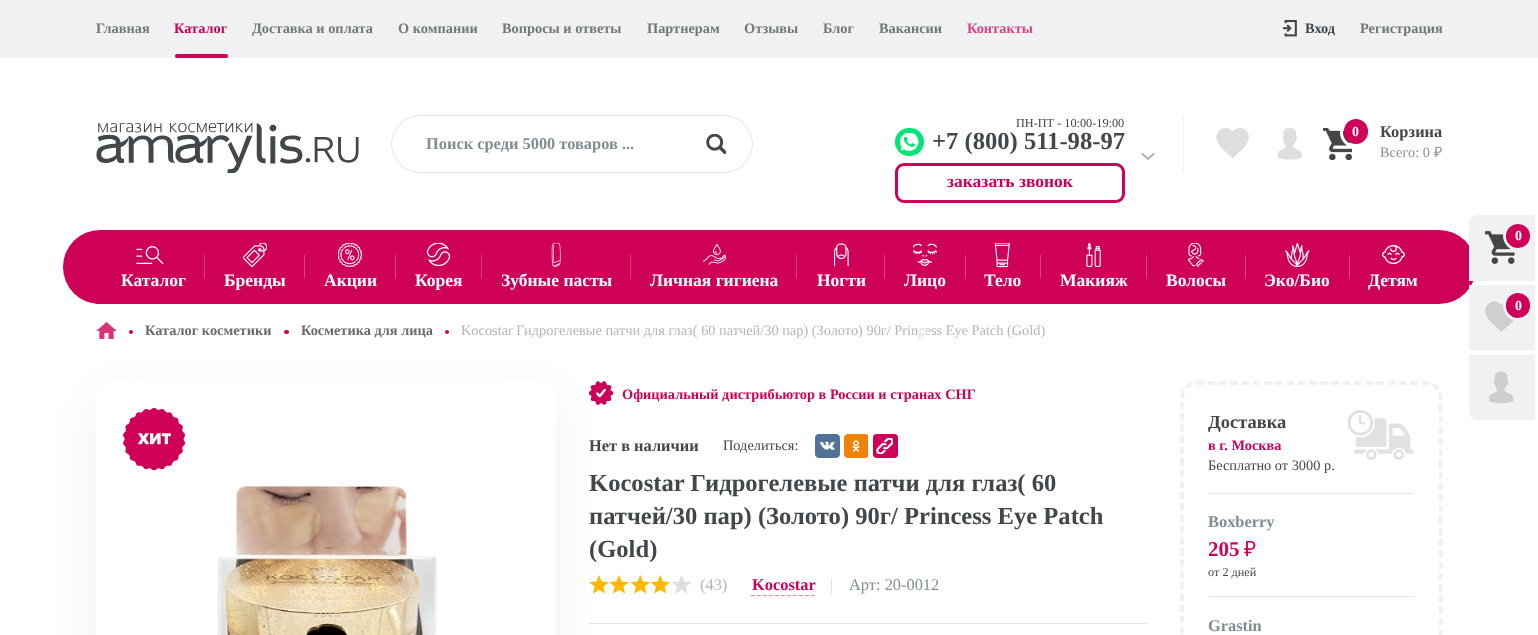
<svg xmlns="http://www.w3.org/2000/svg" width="1538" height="635">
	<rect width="100%" height="100%" fill="#FFFFFF" />
	<rect x="0" y="0" width="1538" height="58" fill="#F0F1F2" />
	<text x="96" y="33" font-family="Liberation Serif" font-size="14.35" font-weight="700" fill="#727779">Главная</text>
	<text x="174" y="33" font-family="Liberation Serif" font-size="14.35" font-weight="700" fill="#CE0058">Каталог</text>
	<rect x="175" y="54" width="53" height="4" rx="2" fill="#CE0058" />
	<g font-family="Liberation Serif" font-size="14.35" font-weight="700" fill="#727779">
		<text x="252" y="33">Доставка и оплата</text>
		<text x="398" y="33">О компании</text>
		<text x="502" y="33">Вопросы и ответы</text>
		<text x="647" y="33">Партнерам</text>
		<text x="744" y="33">Отзывы</text>
		<text x="823" y="33">Блог</text>
		<text x="879" y="33">Вакансии</text>
	</g>
	<text x="967" y="33" font-family="Liberation Serif" font-size="14.35" font-weight="700" fill="#D84383">Контакты</text>
	<image x="1283" y="20" width="14" height="17" href="assets/img1.png" />
	<text x="1305" y="33" font-family="Liberation Serif" font-size="14.35" font-weight="700" fill="#41474A">Вход</text>
	<text x="1360" y="33" font-family="Liberation Serif" font-size="14.35" font-weight="700" fill="#727779">Регистрация</text>
	<image x="96" y="123" width="263" height="50" href="assets/img2.png" />
	<rect x="391.5" y="115.5" width="361" height="57" rx="28.5" fill="none" stroke="#E5E5E5" />
	<text x="426" y="149" font-family="Liberation Serif" font-size="16.4" font-weight="700" fill="#818D92">Поиск среди 5000 товаров ...</text>
	<image x="706" y="134" width="20" height="20" href="assets/img3.png" />
	<rect x="1183" y="115" width="1" height="58" fill="#F2F2F2" />
	<text x="1016" y="127" font-family="Liberation Serif" font-size="12.25" fill="#41474A">ПН-ПТ - 10:00-19:00</text>
	<rect x="895" y="128" width="29" height="28" rx="14" fill="#00E676" />
	<image x="900" y="133" width="19" height="18" href="assets/img4.png" />
	<text x="932" y="149" font-family="Liberation Serif" font-size="24.6" font-weight="700" fill="#41474A">+7 (800) 511-98-97</text>
	<path d="M1142.5 154L1148 159L1153.5 154" fill="none" stroke="#ADADAD" stroke-width="2" stroke-linecap="round" />
	<rect x="896.5" y="164.5" width="227" height="37" rx="7.5" fill="none" stroke="#CE0058" stroke-width="3" />
	<text x="947" y="187" font-family="Liberation Serif" font-size="17.5" font-weight="700" fill="#CE0058">заказать звонок</text>
	<image x="1323" y="128" width="30" height="32" href="assets/img5.png" />
	<rect x="1341.5" y="116.5" width="28" height="30" rx="14" fill="none" stroke="#FFFFFF" stroke-width="3" />
	<rect x="1344" y="119" width="24" height="25" rx="12" fill="#CE0058" />
	<text x="1352" y="136" font-family="Liberation Serif" font-size="14" font-weight="700" fill="#FFFFFF">0</text>
	<text x="1380" y="137" font-family="Liberation Serif" font-size="16.4" font-weight="700" fill="#41474A">Корзина</text>
	<text x="1380" y="157" font-family="Liberation Serif" font-size="14.35" fill="#8D9192">Всего: 0</text>
	<text x="1434" y="157" font-family="Noto Sans" font-size="14.35" fill="#8D9192">₽</text>
	<image x="589" y="381" width="25" height="24" href="assets/img25.png" />
	<image x="589" y="575" width="20" height="19" href="assets/img29.png" />
	<image x="609" y="575" width="20" height="19" href="assets/img29.png" />
	<image x="630" y="575" width="20" height="19" href="assets/img30.png" />
	<rect x="589" y="623" width="559" height="1" fill="#E5E5E5" />
	<rect x="96" y="398" width="460" height="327" rx="16" fill="#000000" fill-opacity="0.06" filter="blur(24.5px)" />
	<text x="461" y="335" font-family="Liberation Serif" font-size="14.35" fill="#B3B5B7">Kocostar Гидрогелевые патчи для глаз( 60 патчей/30 пар) (Золото) 90г/ Princess Eye Patch (Gold)</text>
	<text x="917" y="341" font-family="Noto Sans" font-size="18" fill="#EEEEEF">₽</text>
	<path d="M1232.5 158.5C1227.5 153 1220 148.5 1217.5 141.5C1212.5 131 1225.5 123 1232.5 131.5C1239.5 123 1252.5 131 1248 141.5C1245 148.5 1238 153 1232.5 158.5Z" fill="#DEDEDE" />
	<image x="1278" y="128" width="24" height="32" href="assets/img6.png" />
	<rect x="63" y="230" width="1413" height="74" rx="37" fill="#CE0058" />
	<path d="M1478 215H1535V281H1469V224C1469 219 1473 215 1478 215Z" fill="#F0F1F2" />
	<image x="1485" y="231" width="30" height="33" href="assets/img7.png" />
	<circle cx="1518.5" cy="235.5" r="14" fill="none" stroke="#F0F1F2" stroke-width="3" />
	<circle cx="1518" cy="236" r="12" fill="#CE0058" />
	<text x="1515" y="240" font-family="Liberation Serif" font-size="14" font-weight="700" fill="#FFFFFF">0</text>
	<rect x="1469" y="285" width="66" height="65" fill="#F0F1F2" />
	<path d="M1501.5 332C1496.5 327 1489 322 1486 315C1481.5 304.5 1494.5 296.5 1501.5 305C1508.5 296.5 1521.5 304.5 1517 315C1514 322 1506.5 327 1501.5 332Z" fill="#CECFCF" />
	<rect x="1504.5" y="290.5" width="28" height="29" rx="14" fill="none" stroke="#F0F1F2" stroke-width="3" />
	<rect x="1506" y="293" width="24" height="25" rx="12" fill="#CE0058" />
	<text x="1515" y="310" font-family="Liberation Serif" font-size="14" font-weight="700" fill="#FFFFFF">0</text>
	<path d="M1469 355H1535V420H1478C1473 420 1469 416 1469 411Z" fill="#F0F1F2" />
	<image x="1489" y="371" width="25" height="33" href="assets/img8.png" />
	<rect x="204" y="255" width="1" height="24" fill="#DA3D80" />
	<rect x="304" y="255" width="1" height="24" fill="#DA3D80" />
	<rect x="395" y="255" width="1" height="24" fill="#DA3D80" />
	<rect x="481" y="255" width="1" height="24" fill="#DA3D80" />
	<rect x="630" y="255" width="1" height="24" fill="#DA3D80" />
	<rect x="796" y="255" width="1" height="24" fill="#DA3D80" />
	<rect x="884" y="255" width="1" height="24" fill="#DA3D80" />
	<rect x="965" y="255" width="1" height="24" fill="#DA3D80" />
	<rect x="1040" y="255" width="1" height="24" fill="#DA3D80" />
	<rect x="1146" y="255" width="1" height="24" fill="#DA3D80" />
	<rect x="1245" y="255" width="1" height="24" fill="#DA3D80" />
	<rect x="1349" y="255" width="1" height="24" fill="#DA3D80" />
	<image x="136" y="246" width="28" height="18" href="assets/img9.png" />
	<text x="121" y="286" font-family="Liberation Serif" font-size="17.5" font-weight="700" fill="#FFFFFF">Каталог</text>
	<image x="243" y="243" width="24" height="24" href="assets/img10.png" />
	<text x="224" y="286" font-family="Liberation Serif" font-size="17.5" font-weight="700" fill="#FFFFFF">Бренды</text>
	<image x="338" y="243" width="24" height="24" href="assets/img11.png" />
	<text x="324" y="286" font-family="Liberation Serif" font-size="17.5" font-weight="700" fill="#FFFFFF">Акции</text>
	<image x="426" y="243" width="25" height="23" href="assets/img12.png" />
	<text x="415" y="286" font-family="Liberation Serif" font-size="17.5" font-weight="700" fill="#FFFFFF">Корея</text>
	<image x="551" y="243" width="10" height="24" href="assets/img13.png" />
	<text x="501" y="286" font-family="Liberation Serif" font-size="17.5" font-weight="700" fill="#FFFFFF">Зубные пасты</text>
	<image x="703" y="244" width="23" height="21" href="assets/img14.png" />
	<text x="650" y="286" font-family="Liberation Serif" font-size="17.5" font-weight="700" fill="#FFFFFF">Личная гигиена</text>
	<image x="834" y="243" width="15" height="24" href="assets/img15.png" />
	<text x="817" y="286" font-family="Liberation Serif" font-size="17.5" font-weight="700" fill="#FFFFFF">Ногти</text>
	<image x="913" y="243" width="24" height="23" href="assets/img16.png" />
	<text x="904" y="286" font-family="Liberation Serif" font-size="17.5" font-weight="700" fill="#FFFFFF">Лицо</text>
	<image x="994" y="243" width="16" height="25" href="assets/img17.png" />
	<text x="984" y="286" font-family="Liberation Serif" font-size="17.5" font-weight="700" fill="#FFFFFF">Тело</text>
	<image x="1086" y="243" width="15" height="24" href="assets/img18.png" />
	<text x="1060" y="286" font-family="Liberation Serif" font-size="17.5" font-weight="700" fill="#FFFFFF">Макияж</text>
	<image x="1188" y="243" width="17" height="25" href="assets/img19.png" />
	<text x="1166" y="286" font-family="Liberation Serif" font-size="17.5" font-weight="700" fill="#FFFFFF">Волосы</text>
	<image x="1285" y="243" width="25" height="24" href="assets/img20.png" />
	<text x="1264" y="286" font-family="Liberation Serif" font-size="17.5" font-weight="700" fill="#FFFFFF">Эко/Био</text>
	<image x="1381" y="245" width="24" height="20" href="assets/img21.png" />
	<text x="1368" y="286" font-family="Liberation Serif" font-size="17.5" font-weight="700" fill="#FFFFFF">Детям</text>
	<image x="96" y="322" width="20" height="17" href="assets/img22.png" />
	<circle cx="131" cy="332" r="2" fill="#CE0058" />
	<text x="145" y="335" font-family="Liberation Serif" font-size="14.35" font-weight="700" fill="#676C6E">Каталог косметики</text>
	<rect x="284" y="330" width="5" height="4" rx="2" fill="#CE0058" />
	<text x="301" y="335" font-family="Liberation Serif" font-size="14.35" font-weight="700" fill="#676C6E">Косметика для лица</text>
	<circle cx="447" cy="332" r="2" fill="#CE0058" />
	<rect x="96" y="381" width="460" height="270" rx="16" fill="#FFFFFF" />
	<image x="217" y="484" width="220" height="151" href="assets/img23.png" />
	<image x="123" y="407" width="62" height="64" href="assets/img24.png" />
	<text x="622" y="399" font-family="Liberation Serif" font-size="14.35" font-weight="700" fill="#CE0058">Официальный дистрибьютор в России и странах СНГ</text>
	<text x="589" y="451" font-family="Liberation Serif" font-size="16.4" font-weight="700" fill="#41474A">Нет в наличии</text>
	<text x="723" y="450" font-family="Liberation Serif" font-size="14.35" fill="#41474A">Поделиться:</text>
	<image x="815" y="434" width="25" height="24" href="assets/img26.png" />
	<image x="844" y="434" width="24" height="24" href="assets/img27.png" />
	<rect x="873" y="434" width="25" height="24" rx="4" fill="#CE0058" />
	<image x="876" y="438" width="17" height="16" href="assets/img28.png" />
	<g font-family="Liberation Serif" font-size="24.6" font-weight="700" fill="#41474A">
		<text x="589" y="491">Kocostar Гидрогелевые патчи для глаз( 60</text>
		<text x="589" y="524">патчей/30 пар) (Золото) 90г/ Princess Eye Patch</text>
		<text x="589" y="557">(Gold)</text>
	</g>
	<image x="650" y="575" width="20" height="19" href="assets/img30.png" />
	<image x="672" y="575" width="19" height="19" href="assets/img31.png" />
	<text x="700" y="590" font-family="Liberation Serif" font-size="16.4" fill="#B3B5B7">(43)</text>
	<path d="M751 595.5H815" fill="none" stroke="#E785AF" stroke-width="1.2" stroke-dasharray="3.75 2.25" />
	<text x="752" y="590" font-family="Liberation Serif" font-size="16.4" font-weight="700" fill="#CE0058">Kocostar</text>
	<rect x="831" y="578" width="1" height="16" fill="#E5E5E5" />
	<text x="849" y="590" font-family="Liberation Serif" font-size="16.4" fill="#818D92">Арт: 20-0012</text>
	<image x="1348" y="410" width="66" height="50" href="assets/img32.png" />
	<path d="M1196.5 383H1426C1434 383 1440.5 389.5 1440.5 397.5V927.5C1440.5 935.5 1434 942 1426 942H1196.5C1188.5 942 1182 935.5 1182 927.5V397.5C1182 389.5 1188.5 383 1196.5 383Z" fill="none" stroke="#F0F1F2" stroke-width="3.8" stroke-dasharray="7.5 3.75" />
	<text x="1208" y="428" font-family="Liberation Serif" font-size="18.5" font-weight="700" fill="#41474A">Доставка</text>
	<text x="1208" y="450" font-family="Liberation Serif" font-size="14.35" font-weight="700" fill="#CE0058">в г. Москва</text>
	<text x="1208" y="470" font-family="Liberation Serif" font-size="14.35" fill="#41474A">Бесплатно от 3000 р.</text>
	<rect x="1209" y="493" width="205" height="1" fill="#E5E5E5" />
	<text x="1208" y="527" font-family="Liberation Serif" font-size="16.4" font-weight="700" fill="#818D92">Boxberry</text>
	<text x="1208" y="556" font-family="Liberation Serif" font-size="21" font-weight="700" fill="#CE0058">205</text>
	<text x="1244" y="556" font-family="Noto Sans" font-size="21" fill="#CE0058">₽</text>
	<text x="1208" y="576" font-family="Liberation Serif" font-size="12.25" fill="#41474A">от 2 дней</text>
	<rect x="1209" y="596" width="205" height="1" fill="#E5E5E5" />
	<text x="1208" y="631" font-family="Liberation Serif" font-size="16.4" font-weight="700" fill="#818D92">Grastin</text>
</svg>
